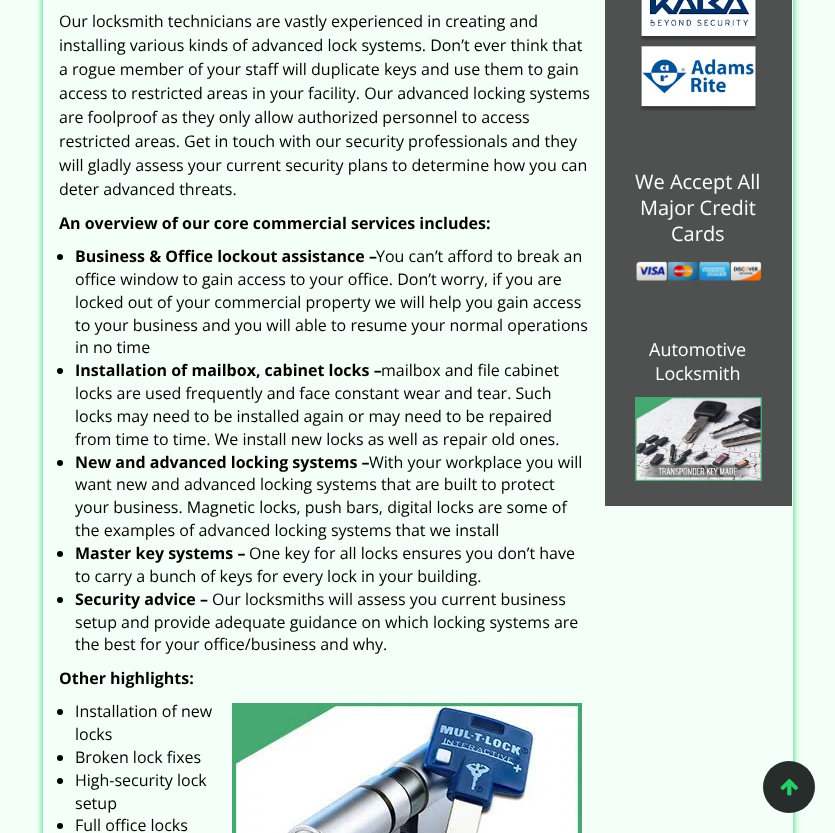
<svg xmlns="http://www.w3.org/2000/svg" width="835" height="833">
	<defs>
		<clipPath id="clip1"><path d="M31 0H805V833H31ZM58-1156H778C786.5-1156 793-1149.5 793-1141V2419H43V-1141C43-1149.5 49.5-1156 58-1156Z" clip-rule="evenodd" /></clipPath>
	</defs>
	<rect width="100%" height="100%" fill="#F4FFF9" />
	<g clip-path="url(#clip1)">
		<rect x="43" y="-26" width="750" height="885" rx="15" fill="#23CE6B" filter="blur(3.5px)" />
	</g>
	<g font-family="Open Sans" font-size="16" fill="#000000">
		<text x="59" y="27">Our locksmith technicians are vastly experienced in creating and</text>
		<text x="59" y="51">installing various kinds of advanced lock systems. Don’t ever think that</text>
		<text x="59" y="75">a rogue member of your staff will duplicate keys and use them to gain</text>
		<text x="59" y="99">access to restricted areas in your facility. Our advanced locking systems</text>
		<text x="59" y="123">are foolproof as they only allow authorized personnel to access</text>
		<text x="59" y="147">restricted areas. Get in touch with our security professionals and they</text>
		<text x="59" y="171">will gladly assess your current security plans to determine how you can</text>
		<text x="59" y="195">deter advanced threats.</text>
	</g>
	<text x="59" y="229" font-family="Open Sans" font-size="16" font-weight="700" fill="#000000">An overview of our core commercial services includes:</text>
	<circle cx="60" cy="257" r="3" fill="#000000" />
	<text x="75" y="262" font-family="Open Sans" font-size="16" font-weight="700" fill="#000000">Business &amp; Office lockout assistance –</text>
	<g font-family="Open Sans" font-size="16" fill="#000000">
		<text x="376" y="262">You can’t afford to break an</text>
		<text x="75" y="285">office window to gain access to your office. Don’t worry, if you are</text>
		<text x="75" y="308">locked out of your commercial property we will help you gain access</text>
		<text x="75" y="331">to your business and you will able to resume your normal operations</text>
		<text x="75" y="353">in no time</text>
	</g>
	<circle cx="60" cy="371" r="3" fill="#000000" />
	<text x="75" y="376" font-family="Open Sans" font-size="16" font-weight="700" fill="#000000">Installation of mailbox, cabinet locks –</text>
	<g font-family="Open Sans" font-size="16" fill="#000000">
		<text x="381" y="376">mailbox and file cabinet</text>
		<text x="75" y="399">locks are used frequently and face constant wear and tear. Such</text>
		<text x="75" y="422">locks may need to be installed again or may need to be repaired</text>
		<text x="75" y="445">from time to time. We install new locks as well as repair old ones.</text>
	</g>
	<circle cx="60" cy="463" r="3" fill="#000000" />
	<text x="75" y="468" font-family="Open Sans" font-size="16" font-weight="700" fill="#000000">New and advanced locking systems –</text>
	<g font-family="Open Sans" font-size="16" fill="#000000">
		<text x="369" y="468">With your workplace you will</text>
		<text x="75" y="490">want new and advanced locking systems that are built to protect</text>
		<text x="75" y="513">your business. Magnetic locks, push bars, digital locks are some of</text>
		<text x="75" y="536">the examples of advanced locking systems that we install</text>
	</g>
	<circle cx="60" cy="554" r="3" fill="#000000" />
	<text x="75" y="559" font-family="Open Sans" font-size="16" font-weight="700" fill="#000000">Master key systems –</text>
	<g font-family="Open Sans" font-size="16" fill="#000000">
		<text x="249" y="559">One key for all locks ensures you don’t have</text>
		<text x="75" y="582">to carry a bunch of keys for every lock in your building.</text>
	</g>
	<circle cx="60" cy="600" r="3" fill="#000000" />
	<text x="75" y="605" font-family="Open Sans" font-size="16" font-weight="700" fill="#000000">Security advice –</text>
	<g font-family="Open Sans" font-size="16" fill="#000000">
		<text x="212" y="605">Our locksmiths will assess you current business</text>
		<text x="75" y="628">setup and provide adequate guidance on which locking systems are</text>
		<text x="75" y="650">the best for your office/business and why.</text>
	</g>
	<text x="59" y="684" font-family="Open Sans" font-size="16" font-weight="700" fill="#000000">Other highlights:</text>
	<circle cx="60" cy="712" r="3" fill="#000000" />
	<g font-family="Open Sans" font-size="16" fill="#000000">
		<text x="75" y="717">Installation of new</text>
		<text x="75" y="740">locks</text>
	</g>
	<circle cx="60" cy="758" r="3" fill="#000000" />
	<text x="75" y="763" font-family="Open Sans" font-size="16" fill="#000000">Broken lock fixes</text>
	<circle cx="60" cy="781" r="3" fill="#000000" />
	<g font-family="Open Sans" font-size="16" fill="#000000">
		<text x="75" y="786">High-security lock</text>
		<text x="75" y="809">setup</text>
	</g>
	<circle cx="60" cy="826" r="3" fill="#000000" />
	<text x="75" y="831" font-family="Open Sans" font-size="16" fill="#000000">Full office locks</text>
	<image x="232" y="703" width="350" height="130" href="assets/img1.png" />
	<rect x="605" y="0" width="187" height="506" fill="#4F5150" />
	<image x="640" y="0" width="117" height="111" href="assets/img2.png" />
	<g font-family="Open Sans" font-size="20" fill="#FFFFFF">
		<text x="635" y="189">We Accept All</text>
		<text x="640" y="215">Major Credit</text>
		<text x="671" y="241">Cards</text>
	</g>
	<image x="636" y="261" width="126" height="21" href="assets/img3.png" />
	<g font-family="Open Sans" font-size="18" fill="#FFFFFF">
		<text x="649" y="356">Automotive</text>
		<text x="655" y="380">Locksmith</text>
	</g>
	<image x="635" y="397" width="127" height="84" href="assets/img4.png" />
	<circle cx="789" cy="787" r="26" fill="#272D2A" />
	<image x="780" y="779" width="18" height="17" href="assets/img5.png" />
</svg>
